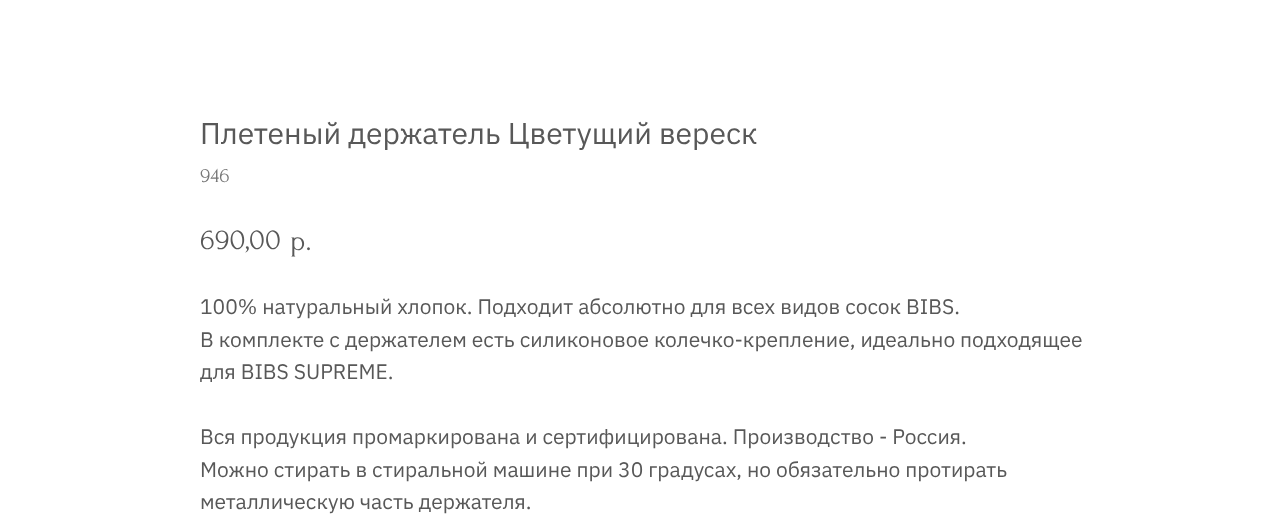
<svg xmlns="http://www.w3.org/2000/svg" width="1270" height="523">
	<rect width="100%" height="100%" fill="#FFFFFF" />
	<text x="200" y="144" font-family="IBM Plex Sans" font-size="30" fill="#585858">Плетеный держатель Цветущий вереск</text>
	<text x="200" y="182" font-family="Forum" font-size="21" fill="#777777">946</text>
	<g font-family="Forum" font-size="30" fill="#585858">
		<text x="200" y="249">690,00</text>
		<text x="290" y="250">р.</text>
	</g>
	<g font-family="IBM Plex Sans" font-size="21" fill="#585858">
		<text x="200" y="314">100% натуральный хлопок. Подходит абсолютно для всех видов сосок BIBS.</text>
		<text x="200" y="347">В комплекте c держателем есть силиконовое колечко-крепление, идеально подходящее</text>
		<text x="200" y="379">для BIBS SUPREME.</text>
		<text x="200" y="444">Вся продукция промаркирована и сертифицирована. Производство - Россия.</text>
		<text x="200" y="477">Можно стирать в стиральной машине при 30 градусах, но обязательно протирать</text>
		<text x="200" y="509">металлическую часть держателя.</text>
	</g>
</svg>
